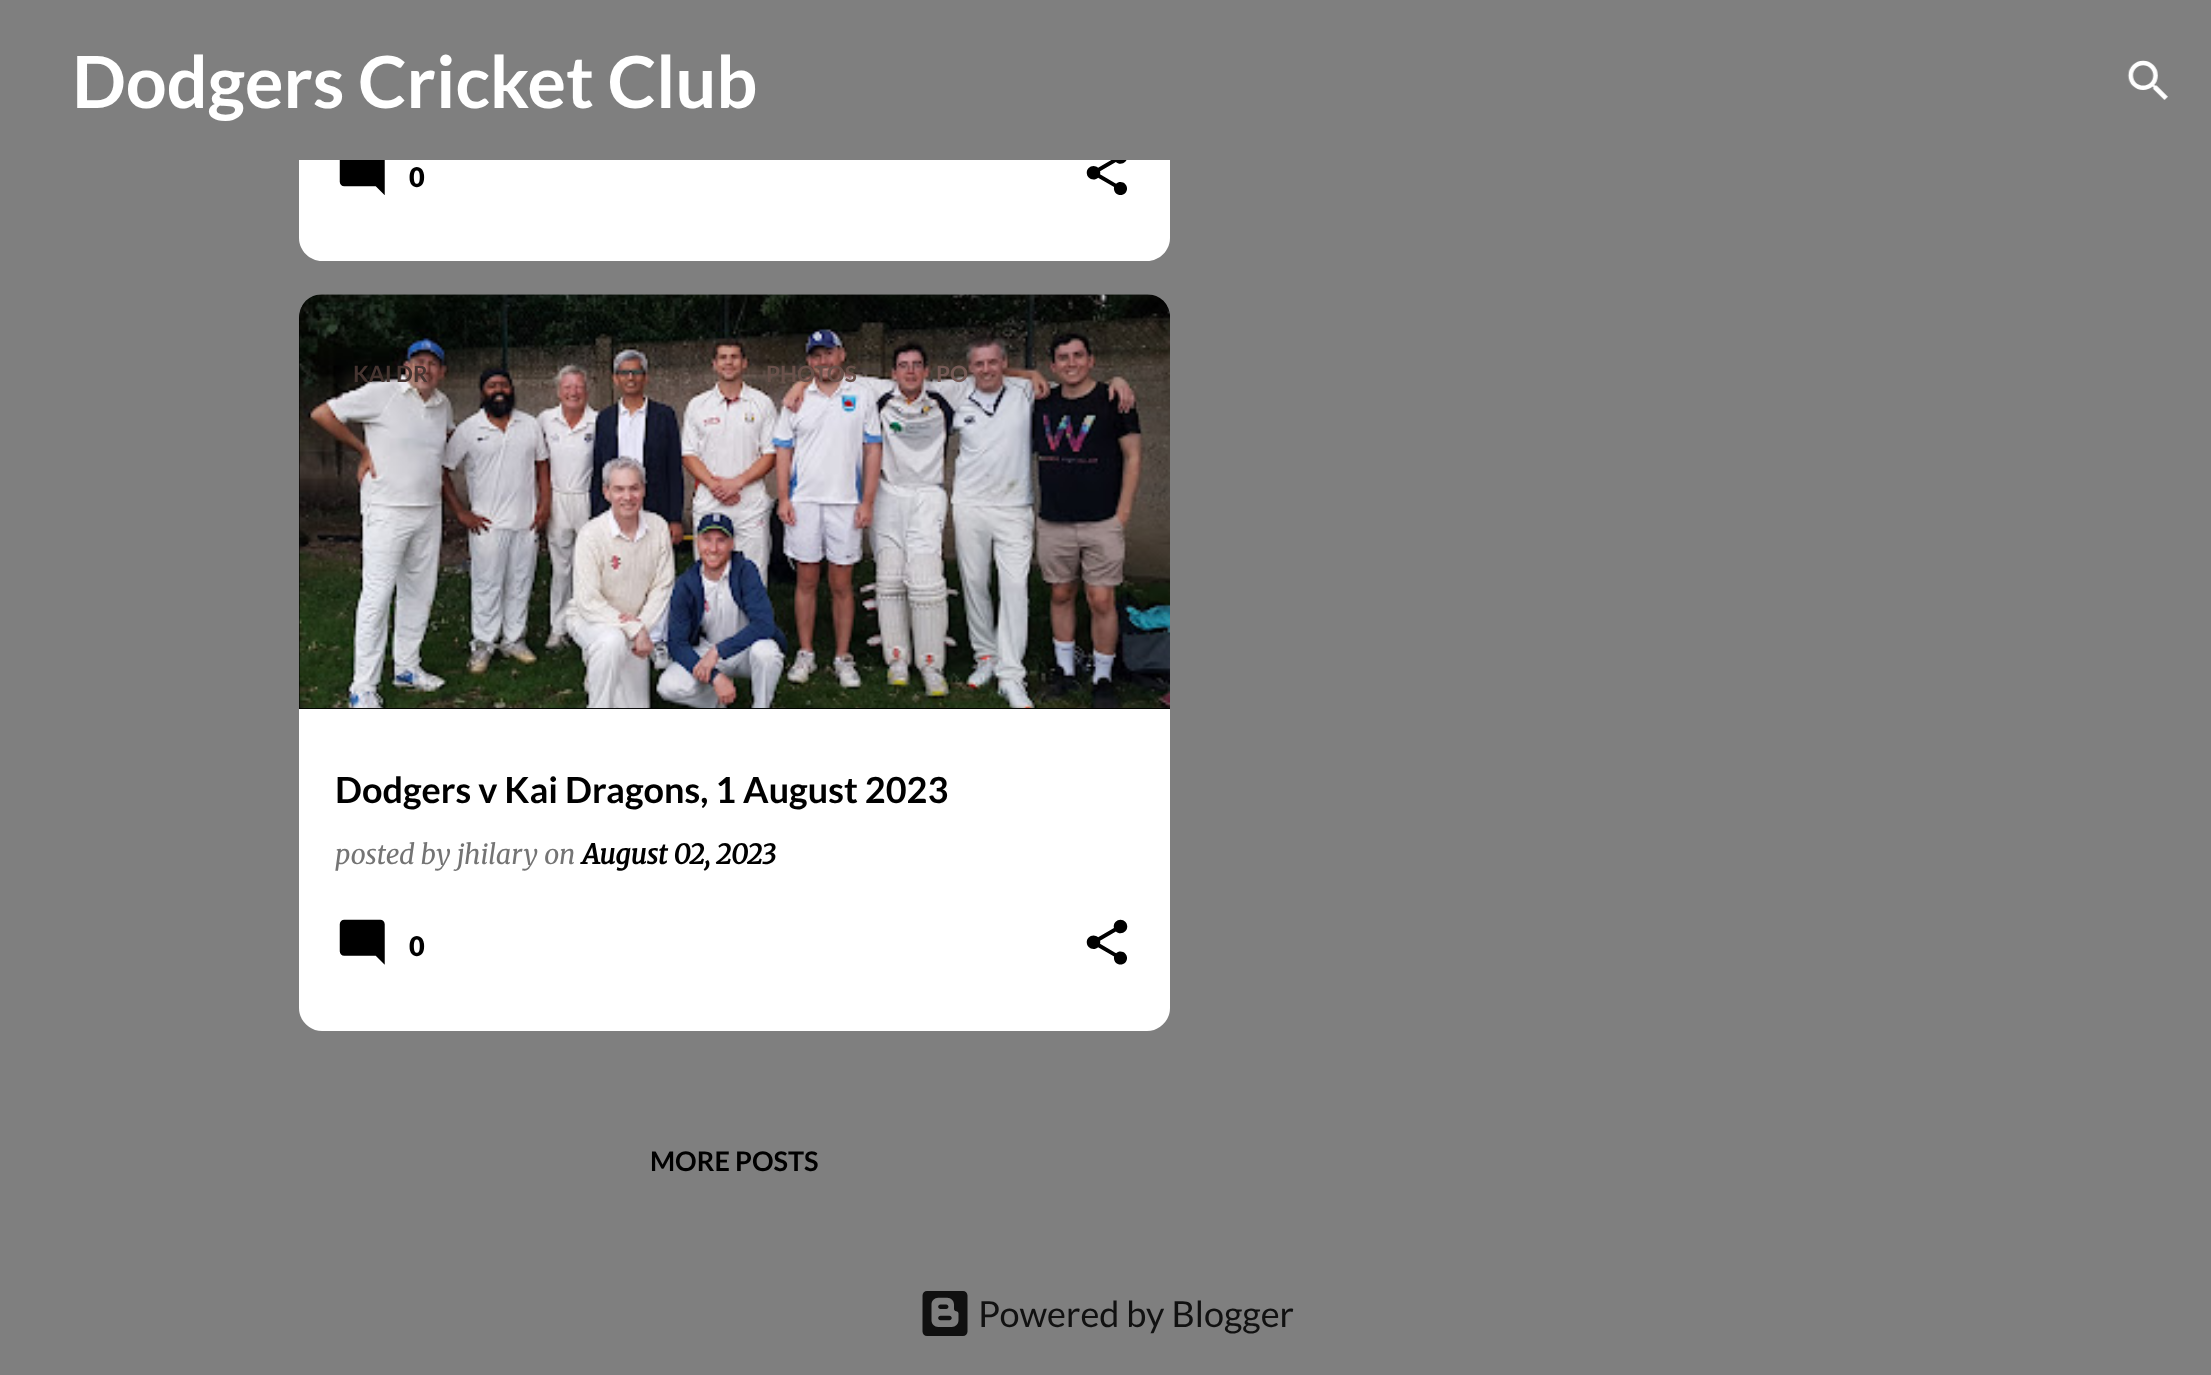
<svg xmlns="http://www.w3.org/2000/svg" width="2211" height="1375">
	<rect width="100%" height="100%" fill="#7F7F7F" />
	<path d="M299-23H1170V238C1170 250.5 1159.5 261 1147 261H322C309.5 261 299 250.5 299 238Z" fill="#FFFFFF" />
	<rect x="299" y="0" width="871" height="160" fill="#7F7F7F" />
	<text x="72" y="108" font-family="Lato" font-size="72" font-weight="700" fill="#FFFFFF">Dodgers Cricket Club</text>
	<image x="2127" y="60" width="41" height="40" href="assets/img1.png" />
	<image x="339" y="160" width="46" height="35" href="assets/img2.png" />
	<text x="409" y="187" font-family="Lato" font-size="27" font-weight="900" fill="#000000">0</text>
	<image x="1086" y="160" width="41" height="35" href="assets/img3.png" />
	<path d="M322 295H1147C1159.5 295 1170 305.5 1170 318V709H299V318C299 305.5 309.5 295 322 295Z" fill="#000000" />
	<image x="299" y="294" width="871" height="415" href="assets/img4.png" />
	<path d="M299 709H1170V1008C1170 1020.5 1159.5 1031 1147 1031H322C309.5 1031 299 1020.5 299 1008Z" fill="#FFFFFF" />
	<text x="353" y="382" font-family="Lato" font-size="22.5" font-weight="700" fill="#463531">KAI DR</text>
	<text x="766" y="382" font-family="Lato" font-size="22.5" font-weight="700" fill="#69514B">PHOTOS</text>
	<text x="936" y="382" font-family="Lato" font-size="22.5" font-weight="700" fill="#755A56">PO</text>
	<text x="335" y="864" font-family="Merriweather" font-size="27" font-style="italic" fill="#747474">posted by jhilary on</text>
	<text x="582" y="864" font-family="Merriweather" font-size="27" font-weight="700" font-style="italic" fill="#000000">August 02, 2023</text>
	<text x="335" y="803" font-family="Lato" font-size="36" font-weight="700" fill="#000000">Dodgers v Kai Dragons, 1 August 2023</text>
	<image x="339" y="919" width="46" height="46" href="assets/img5.png" />
	<text x="409" y="956" font-family="Lato" font-size="27" font-weight="900" fill="#000000">0</text>
	<image x="1086" y="919" width="42" height="46" href="assets/img6.png" />
	<text x="650" y="1171" font-family="Lato" font-size="27" font-weight="700" fill="#000000">MORE POSTS</text>
	<image x="922" y="1291" width="46" height="45" href="assets/img7.png" />
	<text x="978" y="1327" font-family="Lato" font-size="36" fill="#111111">Powered by Blogger</text>
</svg>
